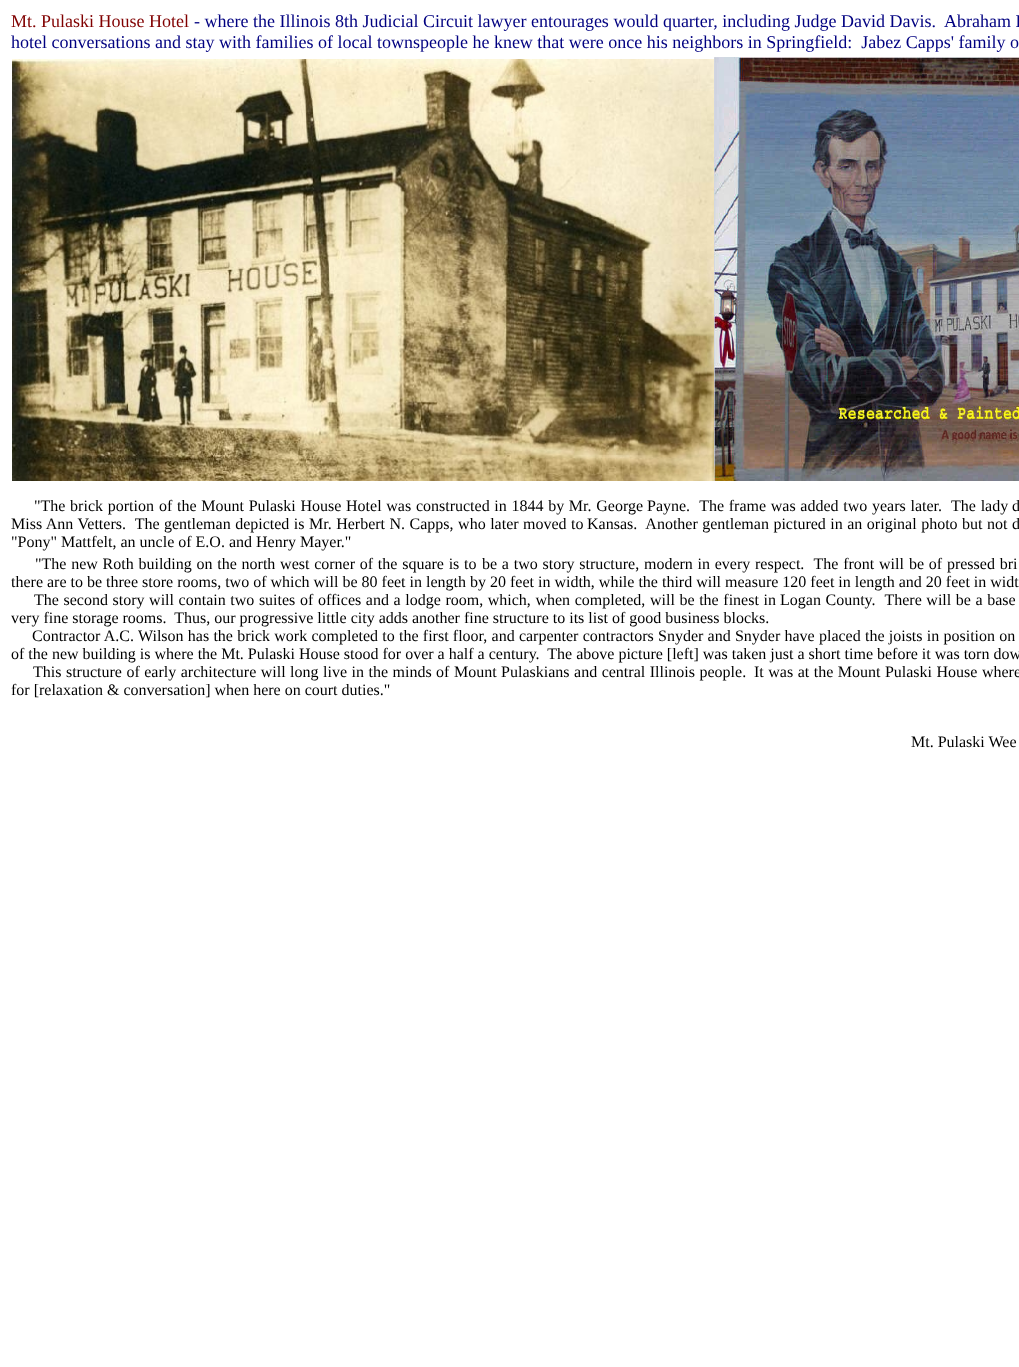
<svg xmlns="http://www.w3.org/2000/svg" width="1019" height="1367">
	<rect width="100%" height="100%" fill="#FFFFFF" />
	<text x="11" y="27" font-family="Liberation Serif" font-size="18" fill="#800000">Mt. Pulaski House Hotel</text>
	<g font-family="Liberation Serif" font-size="18" fill="#000080">
		<text x="194" y="27" xml:space="preserve">- where the Illinois 8th Judicial Circuit lawyer entourages would quarter, including Judge David Davis.  Abraham L</text>
		<text x="11" y="48" xml:space="preserve">hotel conversations and stay with families of local townspeople he knew that were once his neighbors in Springfield:  Jabez Capps' family o</text>
	</g>
	<image x="12" y="59" width="702" height="422" href="assets/img1.png" />
	<image x="714" y="57" width="305" height="424" href="assets/img2.png" />
	<g font-family="Liberation Serif" font-size="16" fill="#000000">
		<text x="34" y="511" word-spacing="0.7">"The brick portion</text>
		<text x="159" y="511" word-spacing="0.7">of the Mount Pulaski House Hotel was constructed in 1844 by Mr. George</text>
		<text x="647" y="511" word-spacing="0.7" xml:space="preserve">Payne.  The frame was added two years later.  The lady</text>
		<text x="1012" y="511" word-spacing="0.7">d</text>
		<text x="11" y="529" word-spacing="0.5" xml:space="preserve">Miss Ann Vetters.  The</text>
		<text x="164" y="529" word-spacing="0.5">gentleman depicted is Mr. Herbert N. Capps, who later moved to</text>
		<text x="587" y="529" word-spacing="0.5" xml:space="preserve">Kansas.  Another gentleman pictured in an original photo but not</text>
		<text x="1012" y="529" word-spacing="0.5">d</text>
		<text x="11" y="547">"Pony" Mattfelt, an uncle of E.O. and Henry Mayer."</text>
		<text x="35" y="569" word-spacing="0.75">"The new Roth building on the north west corner of the square is to</text>
		<text x="482" y="569" word-spacing="0.75" xml:space="preserve">be a two story structure, modern in every respect.  The front will</text>
		<text x="909" y="569" word-spacing="0.75">be of pressed bri</text>
		<text x="11" y="587">there are to be three store rooms, two of which will be 80 feet in length by 20 feet in width, while the third will measure 120 feet in length and 20 feet in widt</text>
		<text x="34" y="605" word-spacing="0.6">The second story will contain two suites of</text>
		<text x="318" y="605" word-spacing="0.6">offices and a lodge room, which, when completed, will be the finest in</text>
		<text x="780" y="605" word-spacing="0.6" xml:space="preserve">Logan County.  There will be a base</text>
		<text x="11" y="623" xml:space="preserve">very fine storage rooms.  Thus, our progressive little city adds another fine structure to its list of good business blocks.</text>
		<text x="32" y="641" word-spacing="0.25">Contractor A.C. Wilson has the brick work completed to the first floor, and carpenter contractors Snyder and Snyder have placed the joists in position on</text>
		<text x="11" y="659" xml:space="preserve">of the new building is where the Mt. Pulaski House stood for over a half a century.  The above picture [left] was taken just a short time before it was torn dow</text>
		<text x="33" y="677" word-spacing="0.5">This structure of early architecture will long</text>
		<text x="323" y="677" word-spacing="0.5">live in the minds of Mount Pulaskians and central Illinois people.</text>
		<text x="754" y="677" word-spacing="0.5">It was at the Mount Pulaski House where</text>
		<text x="11" y="695">for [relaxation &amp; conversation] when here on court duties."</text>
		<text x="911" y="747">Mt. Pulaski Wee</text>
	</g>
</svg>
